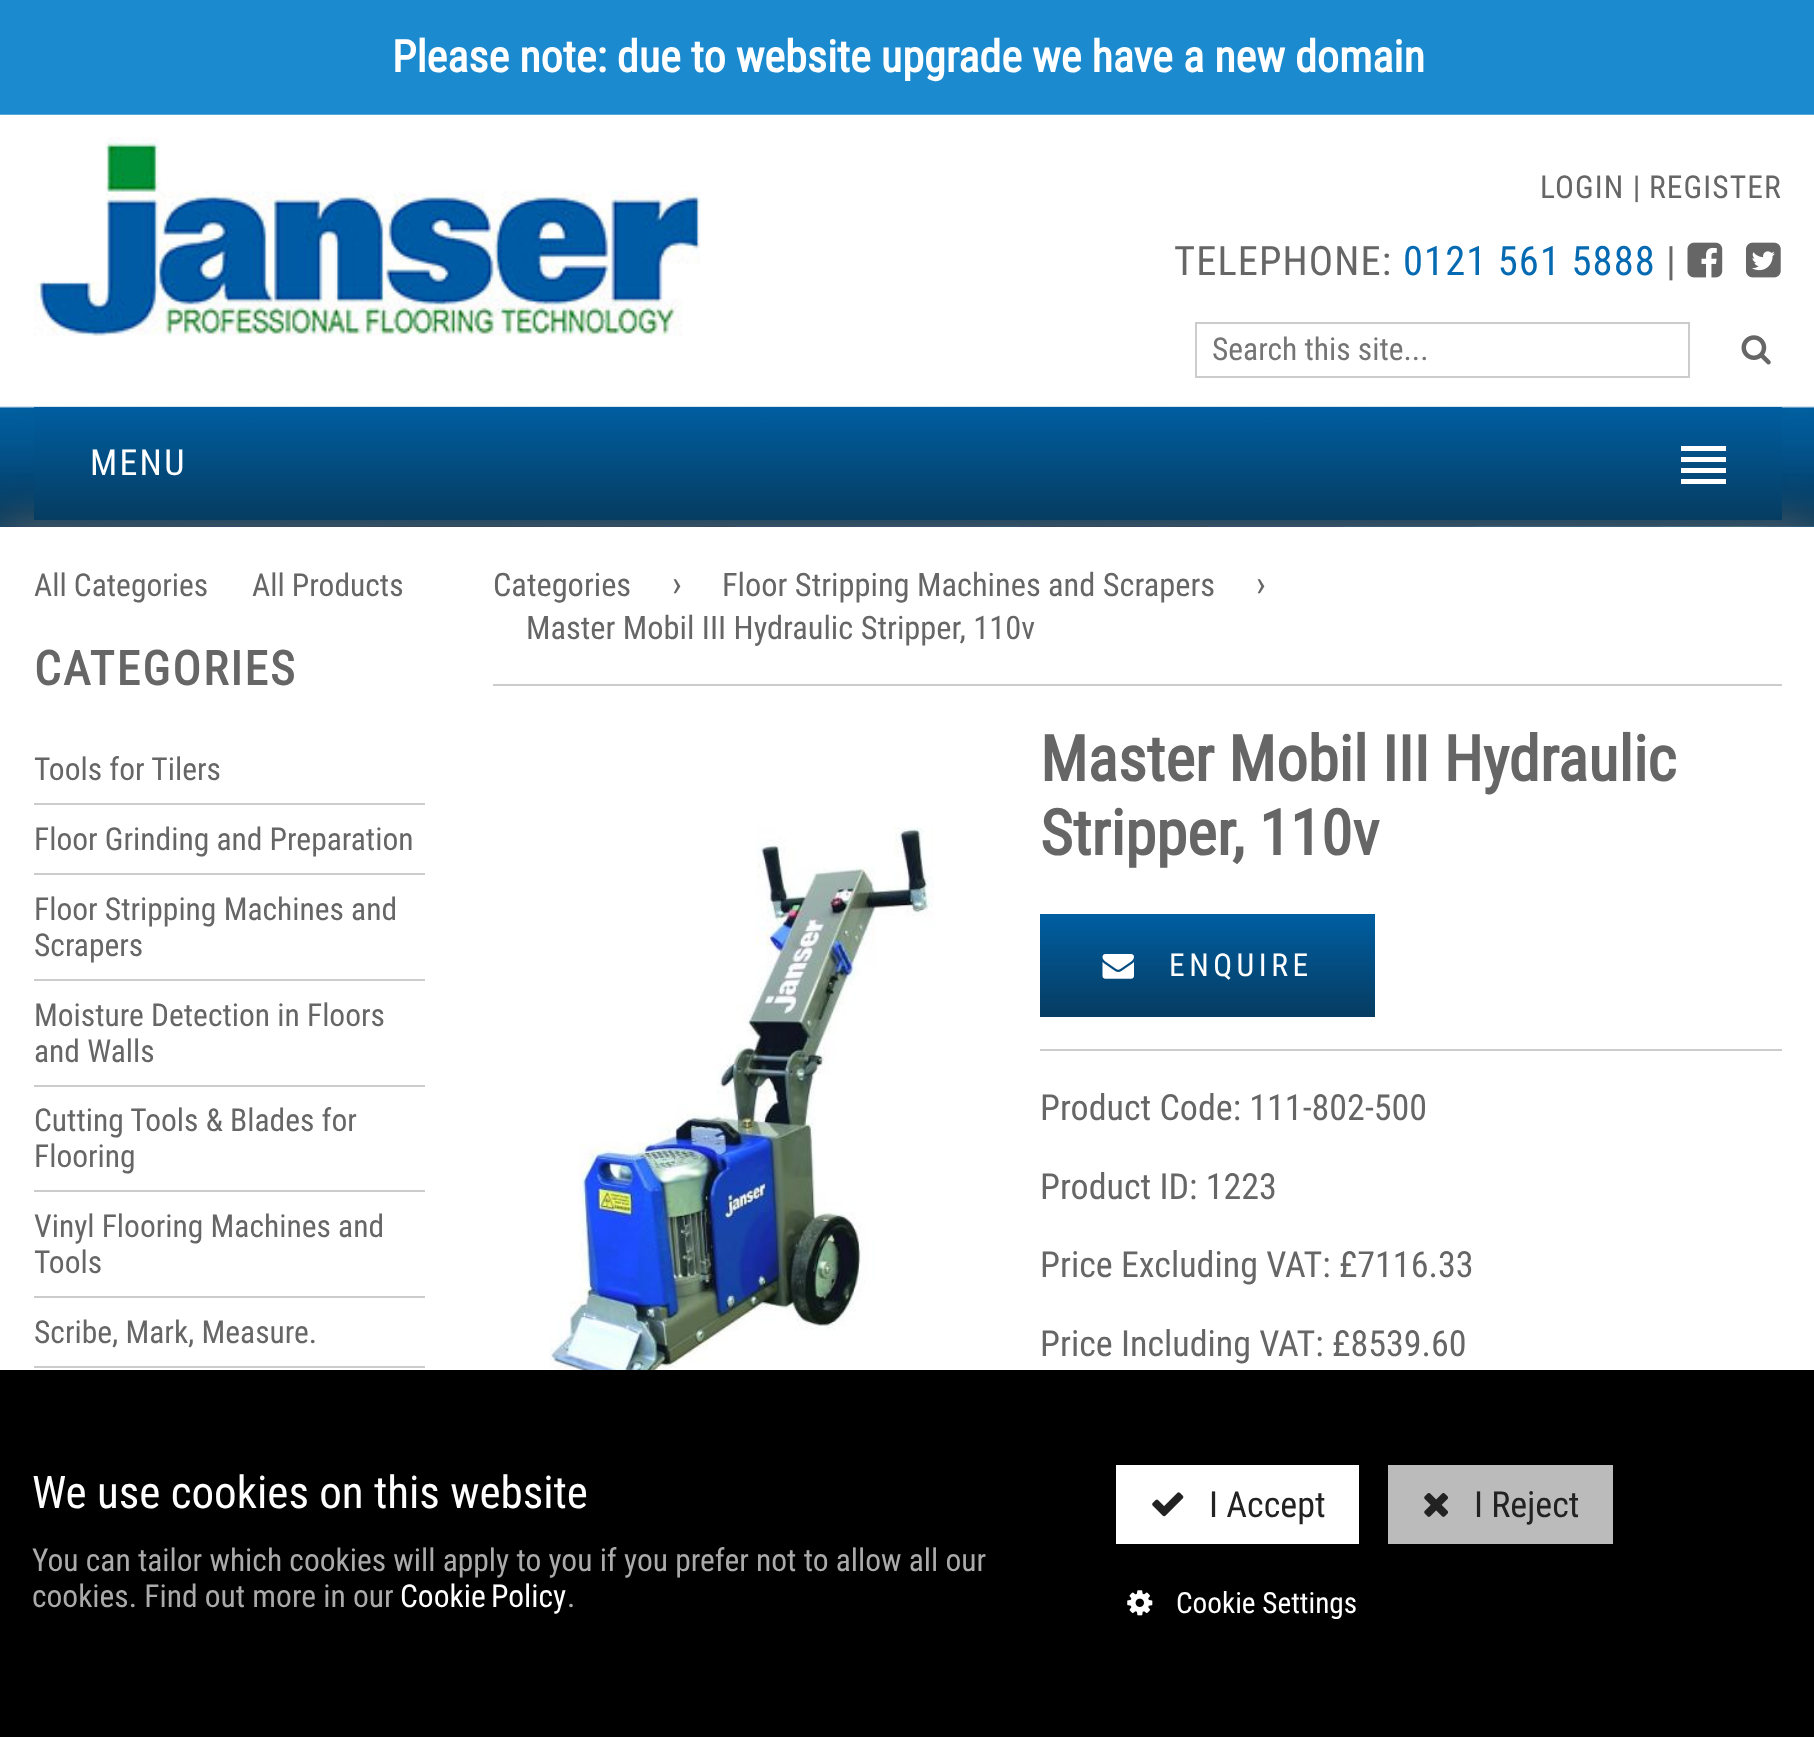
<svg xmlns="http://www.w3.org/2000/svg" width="1814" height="1737">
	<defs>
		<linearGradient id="g1" gradientUnits="userSpaceOnUse" x1="908" y1="407" x2="908" y2="520"><stop offset="0" stop-color="#005EA1" /><stop offset="1" stop-color="#063C61" /></linearGradient>
		<linearGradient id="g2" gradientUnits="userSpaceOnUse" x1="1207" y1="914" x2="1207" y2="1017"><stop offset="0" stop-color="#005EA1" /><stop offset="1" stop-color="#063C61" /></linearGradient>
	</defs>
	<rect width="100%" height="100%" fill="#063C61" />
	<rect x="0" y="0" width="1814" height="115" fill="#1C8ACE" />
	<text x="392" y="72" font-family="Roboto Condensed" font-size="44.1" font-weight="700" fill="#FFFFFF">Please note: due to website upgrade we have a new domain</text>
	<image x="0" y="114" width="1814" height="395" href="assets/img1.png" />
	<image x="34" y="137" width="667" height="199" href="assets/img2.png" />
	<g font-family="Roboto Condensed" font-size="31.5" letter-spacing="1.1" fill="#666666">
		<text x="1540" y="198">LOGIN |</text>
		<text x="1649" y="198">REGISTER</text>
	</g>
	<text x="1174" y="275" font-family="Roboto Condensed" font-size="40.5" letter-spacing="1.1" fill="#666666">TELEPHONE:</text>
	<text x="1403" y="275" font-family="Roboto Condensed" font-size="40.5" letter-spacing="1.1" fill="#056AB1">0121 561 5888</text>
	<text x="1666" y="275" font-family="Roboto Condensed" font-size="40.5" letter-spacing="1.1" fill="#666666">|</text>
	<image x="1687" y="242" width="36" height="36" href="assets/img3.png" />
	<image x="1746" y="242" width="35" height="36" href="assets/img4.png" />
	<rect x="1196" y="323" width="493" height="54" fill="none" stroke="#CCCCCC" stroke-width="2" />
	<text x="1212" y="360" font-family="Roboto Condensed" font-size="31.5" fill="#757575">Search this site...</text>
	<image x="1741" y="335" width="30" height="30" href="assets/img5.png" />
	<image x="0" y="526" width="1814" height="1" href="assets/img6.png" />
	<rect x="0" y="527" width="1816" height="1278" fill="#666666" filter="blur(22.5px)" />
	<rect x="34" y="407" width="1748" height="113" fill="url(#g1)" />
	<text x="90" y="475" font-family="Roboto Condensed" font-size="36" letter-spacing="2.25" fill="#FFFFFF">MENU</text>
	<rect x="1681" y="446" width="45" height="5" fill="#FFFFFF" />
	<rect x="1681" y="457" width="45" height="5" fill="#FFFFFF" />
	<rect x="1681" y="468" width="45" height="5" fill="#FFFFFF" />
	<rect x="1681" y="479" width="45" height="5" fill="#FFFFFF" />
	<rect x="0" y="527" width="1814" height="843" fill="#FFFFFF" />
	<g font-family="Roboto Condensed" font-size="31.5" fill="#666666">
		<text x="34" y="596">All Categories</text>
		<text x="252" y="596">All Products</text>
	</g>
	<text x="34" y="685" font-family="Roboto Condensed" font-size="47.25" font-weight="700" letter-spacing="2.25" fill="#666666">CATEGORIES</text>
	<rect x="34" y="803" width="391" height="2" fill="#CCCCCC" />
	<text x="34" y="780" font-family="Roboto Condensed" font-size="31.5" fill="#666666">Tools for Tilers</text>
	<rect x="34" y="873" width="391" height="2" fill="#CCCCCC" />
	<text x="34" y="850" font-family="Roboto Condensed" font-size="31.5" fill="#666666">Floor Grinding and Preparation</text>
	<rect x="34" y="979" width="391" height="2" fill="#CCCCCC" />
	<g font-family="Roboto Condensed" font-size="31.5" fill="#666666">
		<text x="34" y="920">Floor Stripping Machines and</text>
		<text x="34" y="956">Scrapers</text>
	</g>
	<rect x="34" y="1085" width="391" height="2" fill="#CCCCCC" />
	<g font-family="Roboto Condensed" font-size="31.5" fill="#666666">
		<text x="34" y="1026">Moisture Detection in Floors</text>
		<text x="34" y="1062">and Walls</text>
	</g>
	<rect x="34" y="1190" width="391" height="2" fill="#CCCCCC" />
	<g font-family="Roboto Condensed" font-size="31.5" fill="#666666">
		<text x="34" y="1131">Cutting Tools &amp; Blades for</text>
		<text x="34" y="1167">Flooring</text>
	</g>
	<rect x="34" y="1296" width="391" height="2" fill="#CCCCCC" />
	<g font-family="Roboto Condensed" font-size="31.5" fill="#666666">
		<text x="34" y="1237">Vinyl Flooring Machines and</text>
		<text x="34" y="1273">Tools</text>
	</g>
	<rect x="34" y="1366" width="391" height="2" fill="#CCCCCC" />
	<text x="34" y="1343" font-family="Roboto Condensed" font-size="31.5" fill="#666666">Scribe, Mark, Measure.</text>
	<rect x="493" y="684" width="1289" height="2" fill="#CCCCCC" />
	<text x="493" y="596" font-family="Roboto Condensed" font-size="32.4" fill="#666666">Categories</text>
	<text x="672" y="596" font-family="Roboto Condensed" font-size="36" fill="#666666">›</text>
	<text x="722" y="596" font-family="Roboto Condensed" font-size="32.4" fill="#666666">Floor Stripping Machines and Scrapers</text>
	<text x="1256" y="596" font-family="Roboto Condensed" font-size="36" fill="#666666">›</text>
	<text x="526" y="639" font-family="Roboto Condensed" font-size="32.4" fill="#666666">Master Mobil III Hydraulic Stripper, 110v</text>
	<image x="549" y="827" width="385" height="543" href="assets/img7.png" />
	<g font-family="Roboto Condensed" font-size="63" font-weight="700" fill="#666666">
		<text x="1040" y="781">Master Mobil III Hydraulic</text>
		<text x="1040" y="855">Stripper, 110v</text>
	</g>
	<rect x="1040" y="914" width="335" height="103" fill="url(#g2)" />
	<image x="1102" y="954" width="32" height="25" href="assets/img8.png" />
	<text x="1169" y="976" font-family="Roboto Condensed" font-size="31.5" letter-spacing="4.5" fill="#FFFFFF">ENQUIRE</text>
	<rect x="1040" y="1049" width="742" height="2" fill="#CCCCCC" />
	<g font-family="Roboto Condensed" font-size="36" fill="#666666">
		<text x="1040" y="1120">Product Code: 111-802-500</text>
		<text x="1040" y="1199">Product ID: 1223</text>
		<text x="1040" y="1277">Price Excluding VAT: £7116.33</text>
		<text x="1040" y="1356">Price Including VAT: £8539.60</text>
	</g>
	<rect x="0" y="1370" width="1814" height="367" fill="#000000" />
	<text x="32" y="1508" font-family="Roboto Condensed" font-size="45" fill="#FFFFFF">We use cookies on this website</text>
	<rect x="1116" y="1465" width="243" height="79" fill="#FFFFFF" />
	<image x="1152" y="1492" width="32" height="25" href="assets/img9.png" />
	<text x="1209" y="1517" font-family="Roboto Condensed" font-size="36" fill="#222222">I Accept</text>
	<rect x="1388" y="1465" width="225" height="79" fill="#BBBBBB" />
	<image x="1424" y="1493" width="25" height="24" href="assets/img10.png" />
	<text x="1474" y="1517" font-family="Roboto Condensed" font-size="36" fill="#222222">I Reject</text>
	<image x="1127" y="1590" width="26" height="26" href="assets/img11.png" />
	<text x="1176" y="1613" font-family="Roboto Condensed" font-size="29.25" fill="#FFFFFF">Cookie Settings</text>
	<g font-family="Roboto Condensed" font-size="31.5" fill="#AAAAAA">
		<text x="32" y="1571">You can tailor which cookies will apply to you if you prefer not to allow all our</text>
		<text x="32" y="1607">cookies. Find out more in our</text>
	</g>
	<text x="400" y="1607" word-spacing="-2" font-family="Roboto Condensed" font-size="31.5" fill="#FFFFFF">Cookie Policy</text>
	<text x="567" y="1607" font-family="Roboto Condensed" font-size="31.5" fill="#AAAAAA">.</text>
</svg>
